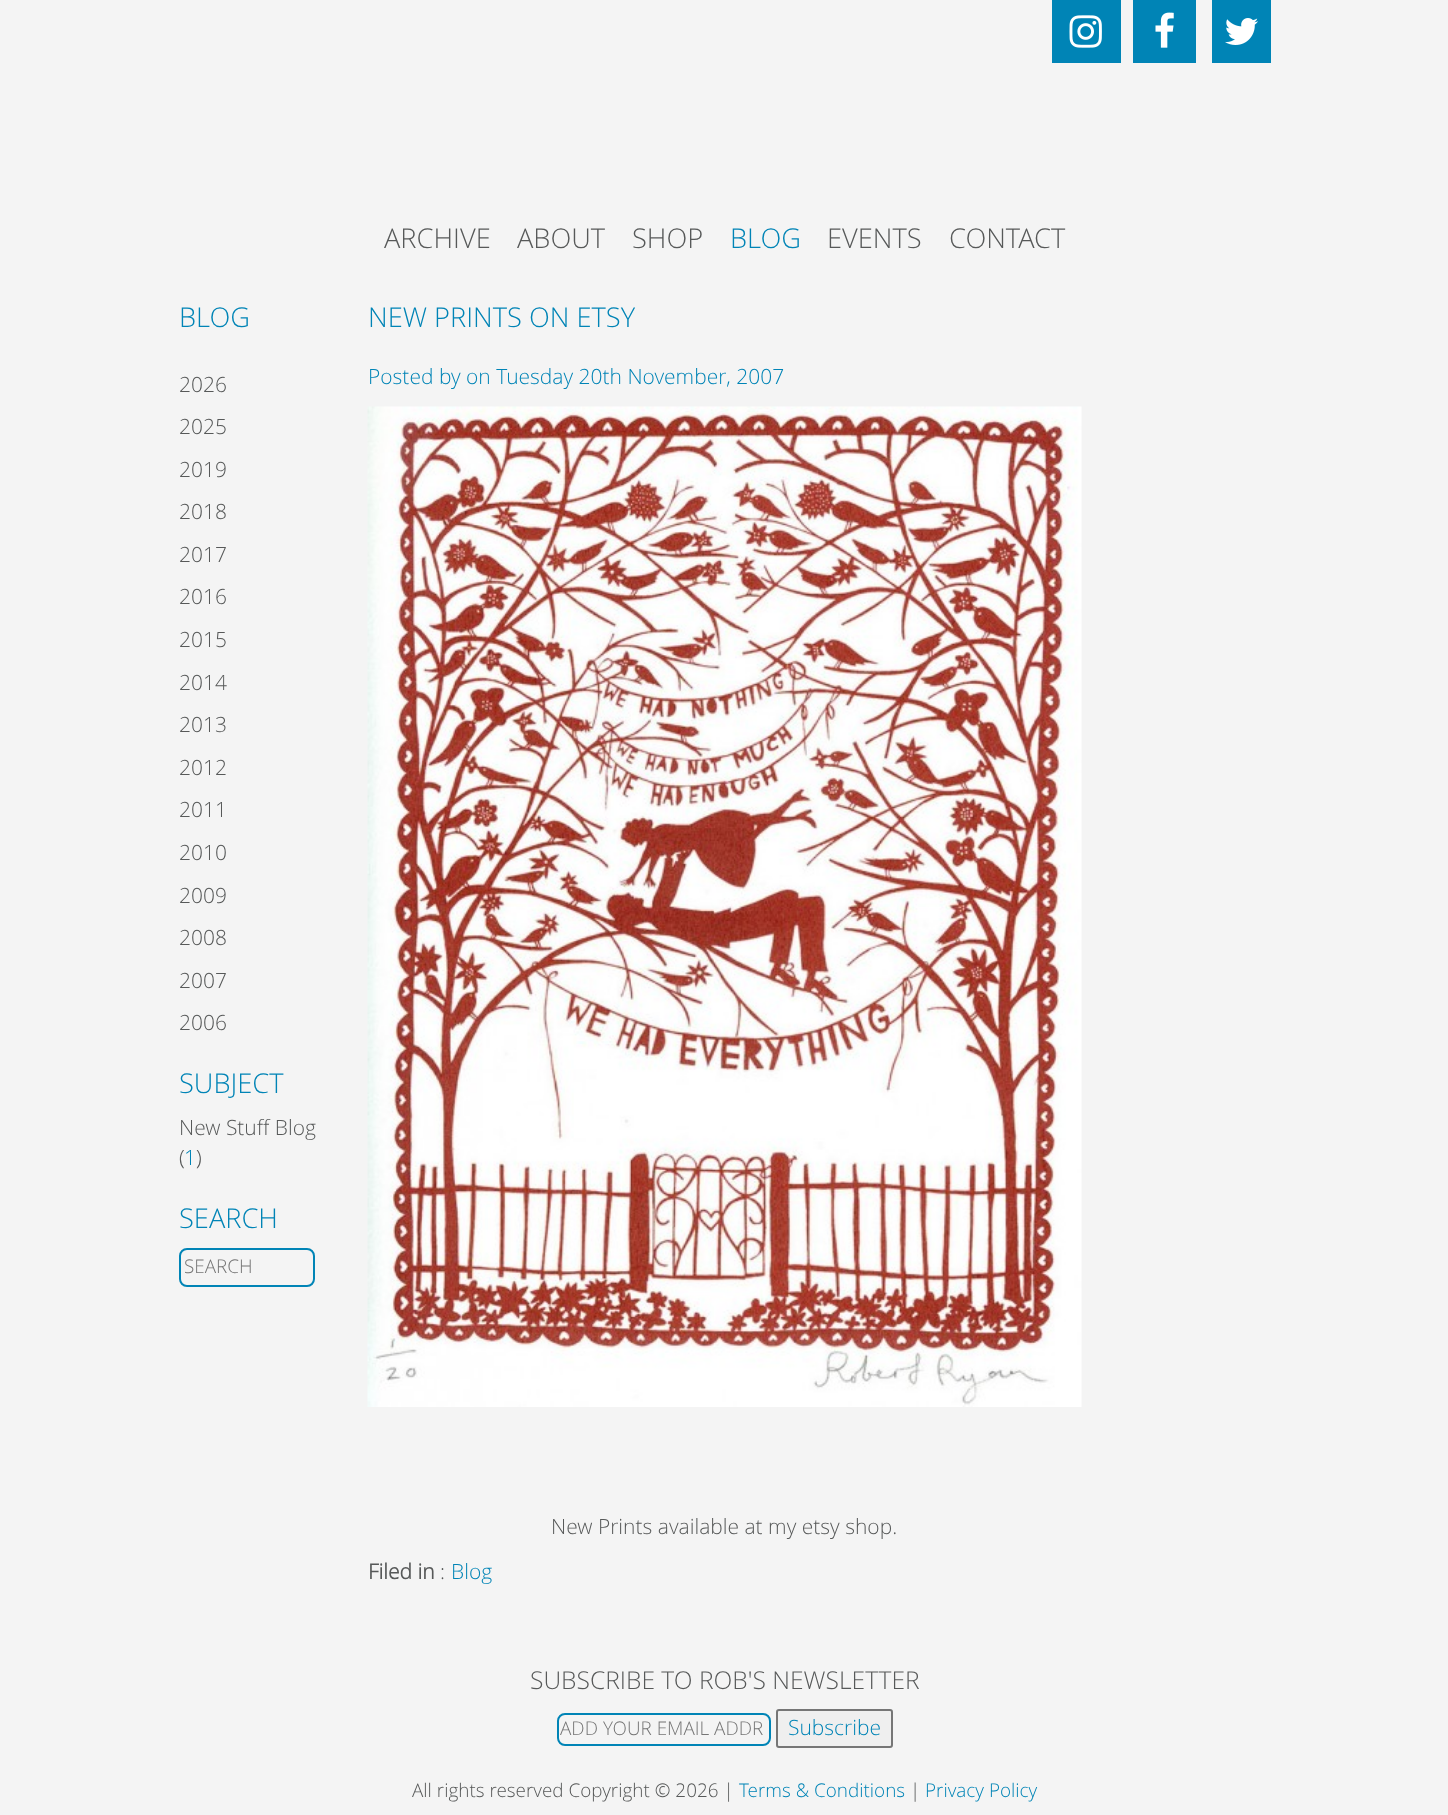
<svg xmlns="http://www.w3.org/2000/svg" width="1448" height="1815">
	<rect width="100%" height="100%" fill="#F4F4F4" />
	<rect x="1052" y="0" width="69" height="63" fill="#0084B6" />
	<image x="1069" y="15" width="33" height="33" href="assets/img1.png" />
	<rect x="1133" y="0" width="63" height="63" fill="#0084B6" />
	<image x="1155" y="12" width="19" height="36" href="assets/img2.png" />
	<rect x="1212" y="0" width="59" height="63" fill="#0084B6" />
	<image x="1225" y="18" width="33" height="27" href="assets/img3.png" />
	<g font-family="Open Sans" font-size="27.25" font-weight="300" fill="#575959">
		<text x="384" y="248">ARCHIVE</text>
		<text x="517" y="248">ABOUT</text>
		<text x="632" y="248">SHOP</text>
	</g>
	<text x="730" y="248" font-family="Open Sans" font-size="27.25" font-weight="300" fill="#0084B6">BLOG</text>
	<g font-family="Open Sans" font-size="27.25" font-weight="300" fill="#575959">
		<text x="827" y="248">EVENTS</text>
		<text x="949" y="248">CONTACT</text>
	</g>
	<text x="179" y="327" font-family="Open Sans" font-size="27.25" font-weight="300" fill="#0084B6">BLOG</text>
	<g font-family="Open Sans" font-size="21" font-weight="300" fill="#575959">
		<text x="179" y="392">2026</text>
		<text x="179" y="434">2025</text>
		<text x="179" y="477">2019</text>
		<text x="179" y="519">2018</text>
		<text x="179" y="562">2017</text>
		<text x="179" y="604">2016</text>
		<text x="179" y="647">2015</text>
		<text x="179" y="690">2014</text>
		<text x="179" y="732">2013</text>
		<text x="179" y="775">2012</text>
		<text x="179" y="817">2011</text>
		<text x="179" y="860">2010</text>
		<text x="179" y="903">2009</text>
		<text x="179" y="945">2008</text>
		<text x="179" y="988">2007</text>
		<text x="179" y="1030">2006</text>
	</g>
	<text x="179" y="1093" font-family="Open Sans" font-size="27.25" font-weight="300" fill="#0084B6">SUBJECT</text>
	<g font-family="Open Sans" font-size="21" font-weight="300" fill="#575959">
		<text x="179" y="1135">New Stuff Blog</text>
		<text x="179" y="1165">(</text>
	</g>
	<text x="184" y="1165" font-family="Open Sans" font-size="21" font-weight="300" fill="#0084B6">1</text>
	<text x="196" y="1165" font-family="Open Sans" font-size="21" font-weight="300" fill="#575959">)</text>
	<text x="179" y="1228" font-family="Open Sans" font-size="27.25" font-weight="300" fill="#0084B6">SEARCH</text>
	<rect x="180" y="1249" width="134" height="37" rx="7" fill="none" stroke="#0084B6" stroke-width="2" />
	<text x="184" y="1273" font-family="Open Sans" font-size="18.9" font-weight="300" fill="#757575">SEARCH</text>
	<text x="368" y="327" font-family="Open Sans" font-size="27.25" font-weight="300" fill="#0084B6">NEW PRINTS ON ETSY</text>
	<text x="368" y="384" font-family="Open Sans" font-size="21" font-weight="300" fill="#0084B6">Posted by on Tuesday 20th November, 2007</text>
	<image x="367" y="406" width="715" height="1001" href="assets/img4.png" />
	<text x="551" y="1534" font-family="Open Sans" font-size="21" font-weight="300" fill="#575959">New Prints available at my etsy shop.</text>
	<text x="368" y="1579" font-family="Open Sans" font-size="21" font-weight="700" fill="#575959">Filed in</text>
	<text x="440" y="1579" font-family="Open Sans" font-size="21" font-weight="300" fill="#575959">:</text>
	<text x="451" y="1579" font-family="Open Sans" font-size="21" font-weight="300" fill="#0084B6">Blog</text>
	<text x="530" y="1689" font-family="Open Sans" font-size="24.6" font-weight="300" fill="#575959">SUBSCRIBE TO ROB'S NEWSLETTER</text>
	<rect x="558" y="1714" width="212" height="31" rx="7" fill="none" stroke="#0084B6" stroke-width="2" />
	<text x="560" y="1735" font-family="Open Sans" font-size="18.9" font-weight="300" fill="#757575">ADD YOUR EMAIL ADDR</text>
	<rect x="777" y="1710" width="115" height="37" rx="2" fill="#EFEFEF" stroke="#767676" stroke-width="2" />
	<text x="788" y="1735" font-family="Open Sans" font-size="21" font-weight="300" fill="#0084B6">Subscribe</text>
	<text x="412" y="1797" font-family="Open Sans" font-size="18.9" font-weight="300" fill="#575959">All rights reserved Copyright © 2026 |</text>
	<text x="739" y="1797" font-family="Open Sans" font-size="18.9" font-weight="300" fill="#0084B6">Terms &amp; Conditions</text>
	<text x="910" y="1797" font-family="Open Sans" font-size="18.9" font-weight="300" fill="#575959">|</text>
	<text x="925" y="1797" font-family="Open Sans" font-size="18.9" font-weight="300" fill="#0084B6">Privacy Policy</text>
</svg>
